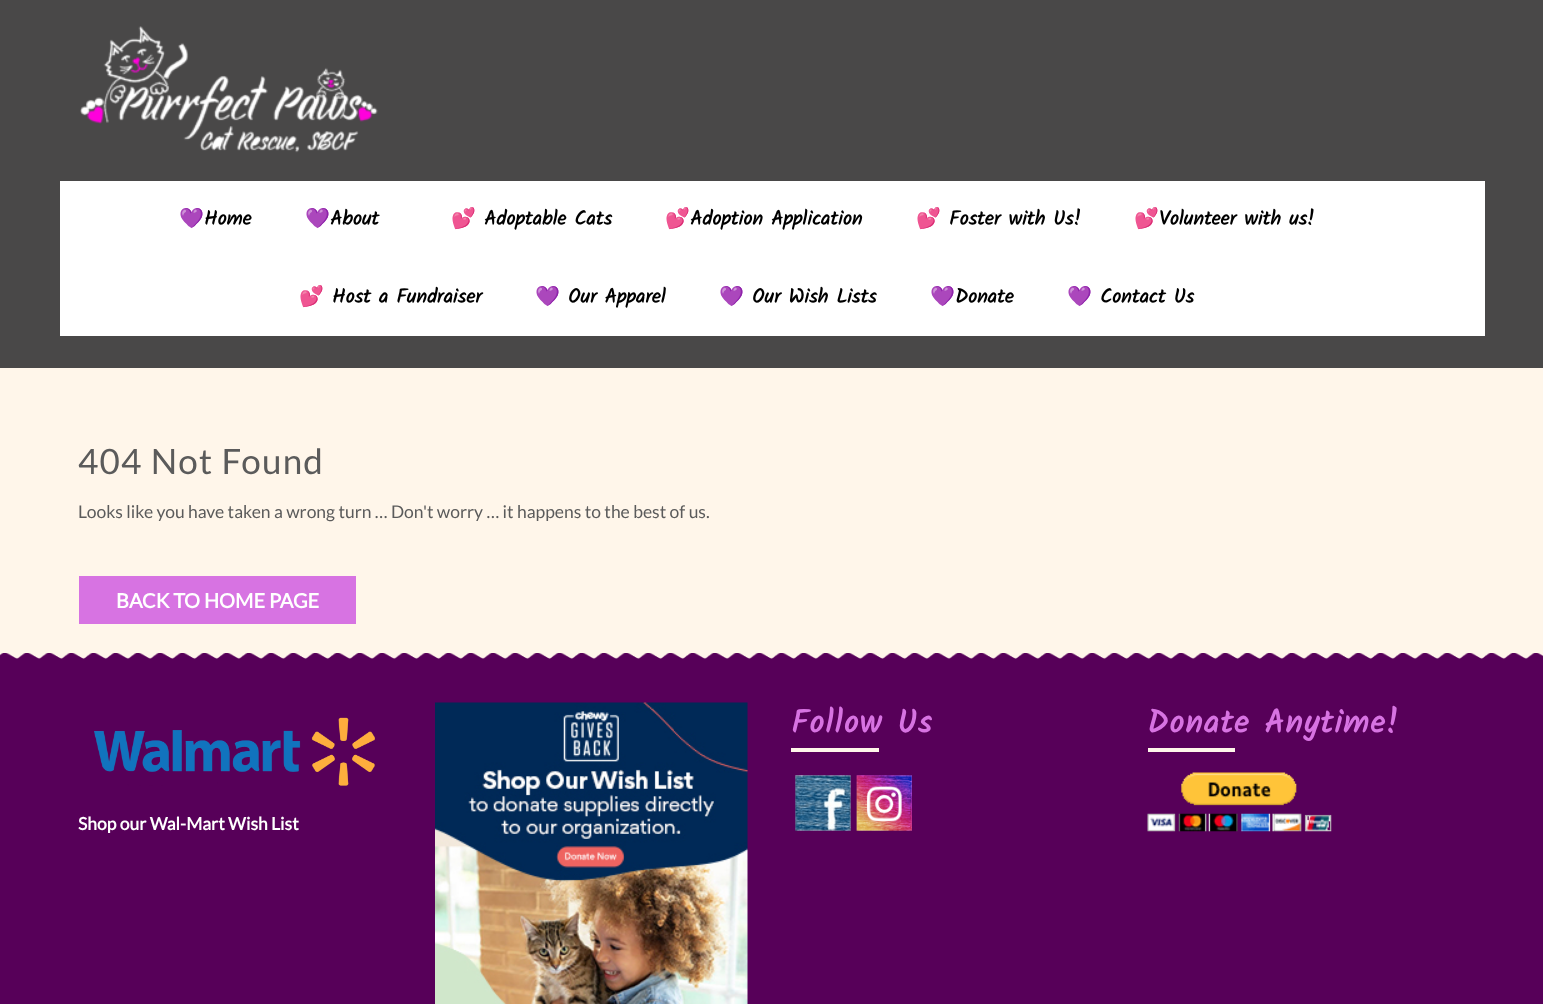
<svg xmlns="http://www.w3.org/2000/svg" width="1543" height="1004">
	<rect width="100%" height="100%" fill="#FFF6EA" />
	<rect x="0" y="0" width="1543" height="368" fill="#494848" />
	<image x="80" y="26" width="298" height="127" href="assets/img1.png" />
	<rect x="60" y="181" width="1425" height="155" fill="#FFFFFF" />
	<text x="179" y="225" font-family="Noto Color Emoji" font-size="20" font-weight="700" fill="#000000">💜</text>
	<text x="204" y="225" font-family="Kalam" font-size="20" font-weight="700" fill="#000000">Home</text>
	<text x="305" y="225" font-family="Noto Color Emoji" font-size="20" font-weight="700" fill="#000000">💜</text>
	<text x="330" y="225" font-family="Kalam" font-size="20" font-weight="700" fill="#000000">About</text>
	<text x="451" y="225" font-family="Noto Color Emoji" font-size="20" font-weight="700" fill="#000000">💕</text>
	<text x="484" y="225" font-family="Kalam" font-size="20" font-weight="700" fill="#000000">Adoptable Cats</text>
	<text x="665" y="225" font-family="Noto Color Emoji" font-size="20" font-weight="700" fill="#000000">💕</text>
	<text x="690" y="225" font-family="Kalam" font-size="20" font-weight="700" fill="#000000">Adoption Application</text>
	<text x="916" y="225" font-family="Noto Color Emoji" font-size="20" font-weight="700" fill="#000000">💕</text>
	<text x="949" y="225" font-family="Kalam" font-size="20" font-weight="700" fill="#000000">Foster with Us!</text>
	<text x="1134" y="225" font-family="Noto Color Emoji" font-size="20" font-weight="700" fill="#000000">💕</text>
	<text x="1159" y="225" font-family="Kalam" font-size="20" font-weight="700" fill="#000000">Volunteer with us!</text>
	<text x="299" y="303" font-family="Noto Color Emoji" font-size="20" font-weight="700" fill="#000000">💕</text>
	<text x="332" y="303" font-family="Kalam" font-size="20" font-weight="700" fill="#000000">Host a Fundraiser</text>
	<text x="535" y="303" font-family="Noto Color Emoji" font-size="20" font-weight="700" fill="#000000">💜</text>
	<text x="568" y="303" font-family="Kalam" font-size="20" font-weight="700" fill="#000000">Our Apparel</text>
	<text x="719" y="303" font-family="Noto Color Emoji" font-size="20" font-weight="700" fill="#000000">💜</text>
	<text x="752" y="303" font-family="Kalam" font-size="20" font-weight="700" fill="#000000">Our Wish Lists</text>
	<text x="930" y="303" font-family="Noto Color Emoji" font-size="20" font-weight="700" fill="#000000">💜</text>
	<text x="955" y="303" font-family="Kalam" font-size="20" font-weight="700" fill="#000000">Donate</text>
	<text x="1067" y="303" font-family="Noto Color Emoji" font-size="20" font-weight="700" fill="#000000">💜</text>
	<text x="1100" y="303" font-family="Kalam" font-size="20" font-weight="700" fill="#000000">Contact Us</text>
	<text x="78" y="474" font-family="Lato" font-size="35" letter-spacing="1.25" fill="#5B5B5B">404 Not Found</text>
	<text x="78" y="518" font-family="Lato" font-size="17.5" fill="#5B5B5B">Looks like you have taken a wrong turn … Don't worry … it happens to the best of us.</text>
	<rect x="79" y="576" width="277" height="48" fill="#D773E2" />
	<text x="116" y="608" font-family="Lato" font-size="20" font-weight="700" fill="#FFFFFF">BACK TO HOME PAGE</text>
	<rect x="0" y="653" width="1543" height="351" fill="#570059" />
	<image x="0" y="653" width="1543" height="6" href="assets/img2.png" />
	<image x="435" y="702" width="313" height="302" href="assets/img3.png" />
	<text x="791" y="733" font-family="Kalam" font-size="32.5" font-weight="700" letter-spacing="1.25" fill="#D773E2">Follow Us</text>
	<rect x="791" y="748" width="88" height="4" fill="#FFF6EA" />
	<image x="795" y="775" width="56" height="56" href="assets/img4.png" />
	<image x="856" y="775" width="56" height="56" href="assets/img5.png" />
	<text x="1147" y="733" font-family="Kalam" font-size="32.5" font-weight="700" letter-spacing="1.25" fill="#D773E2">Donate Anytime!</text>
	<rect x="1148" y="748" width="87" height="4" fill="#FFF6EA" />
	<image x="1147" y="772" width="185" height="60" href="assets/img6.png" />
	<image x="94" y="717" width="281" height="69" href="assets/img7.png" />
	<text x="78" y="830" font-family="Lato" font-size="17.5" font-weight="700" fill="#FFFFFF">Shop our Wal-Mart Wish List</text>
</svg>
